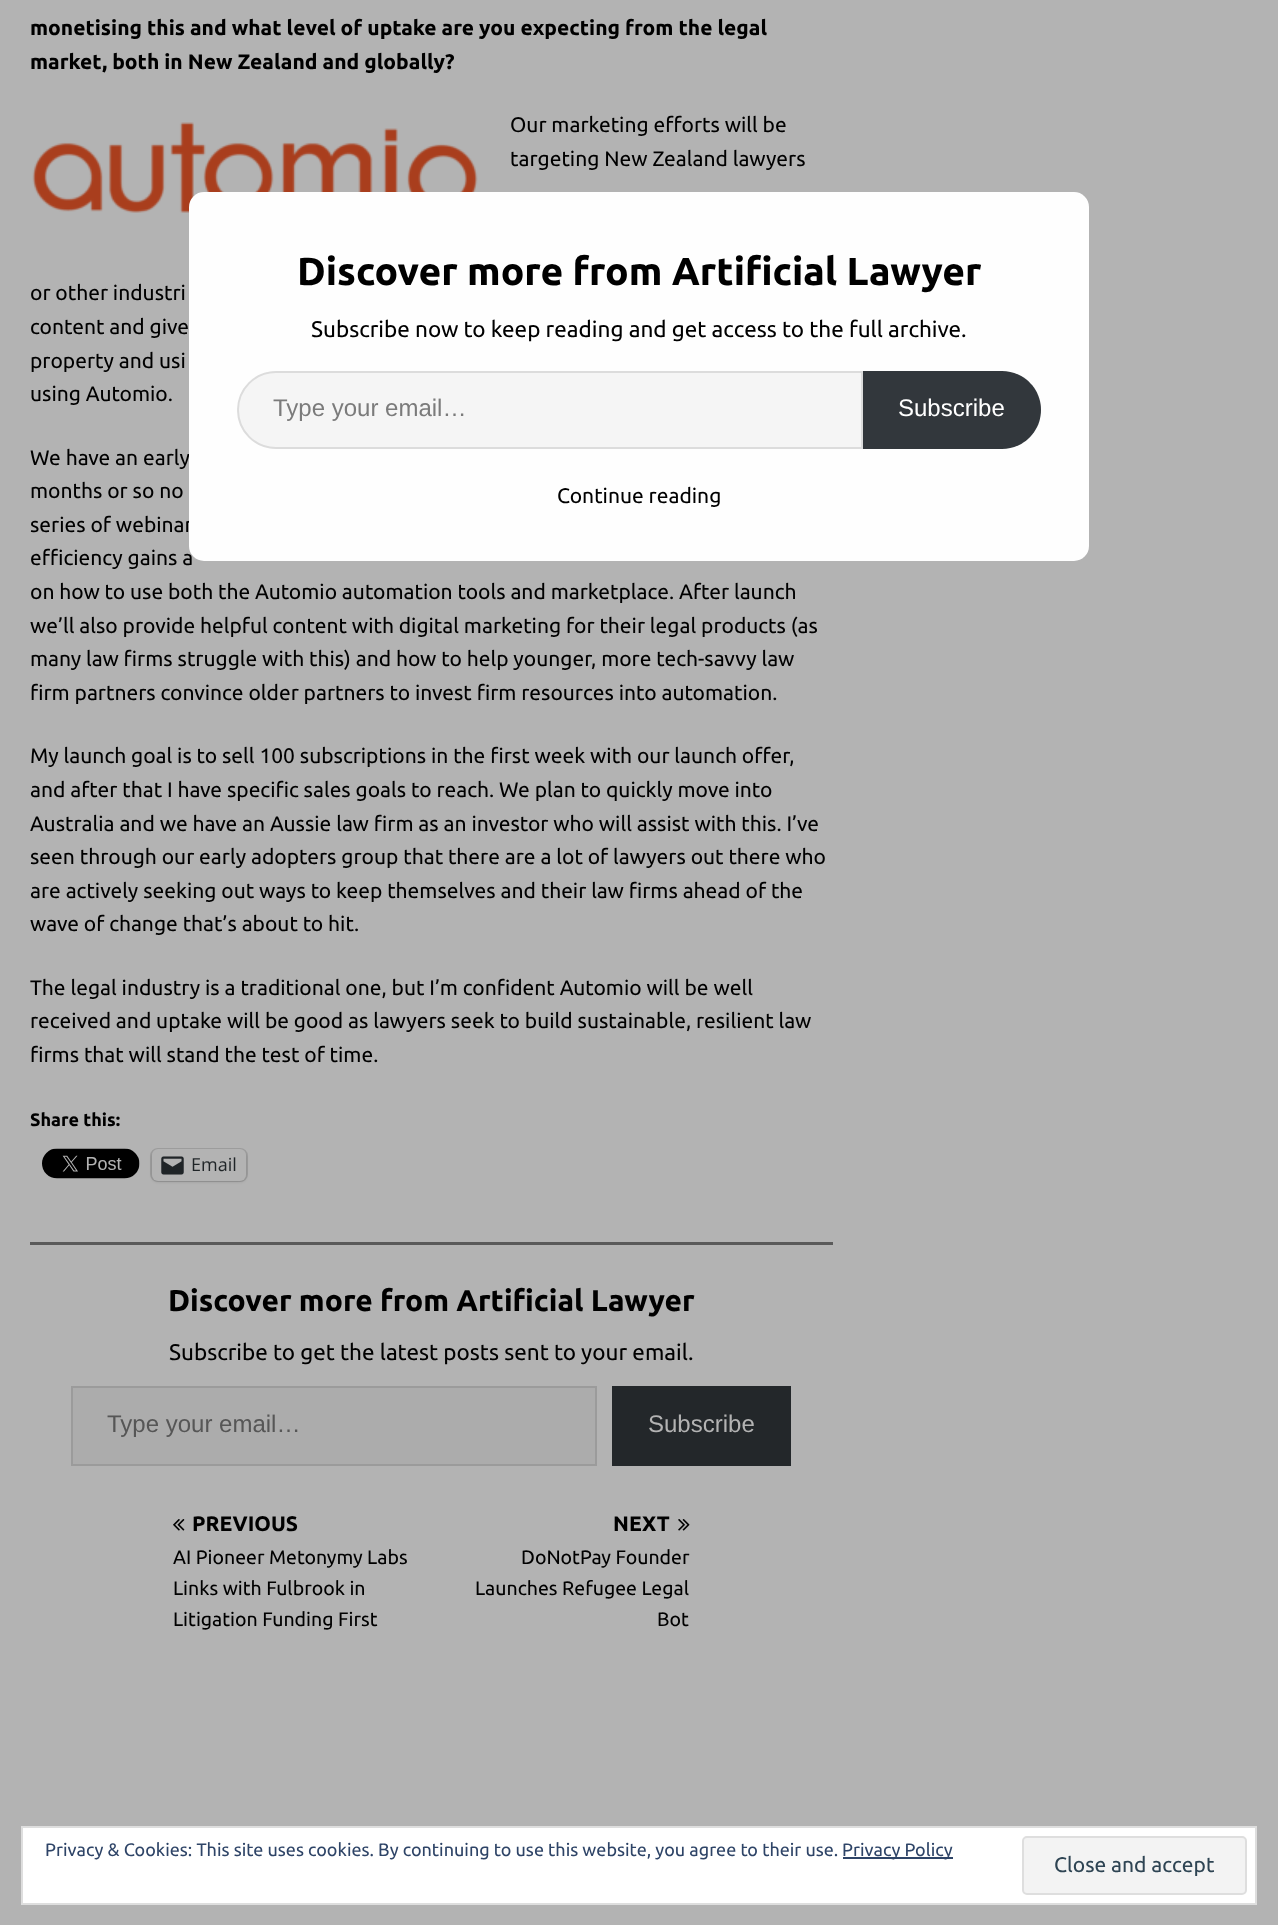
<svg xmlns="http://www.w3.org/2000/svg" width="1278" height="1925">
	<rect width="100%" height="100%" fill="#B3B3B3" />
	<g font-family="Ubuntu" font-size="21" font-weight="700" fill="#000000">
		<text x="30" y="35">monetising this and what level of uptake are you expecting from the legal</text>
		<text x="30" y="69">market, both in New Zealand and globally?</text>
	</g>
	<image x="32" y="122" width="446" height="91" href="assets/img1.png" />
	<g font-family="Ubuntu" font-size="21" fill="#000000">
		<text x="510" y="132">Our marketing efforts will be</text>
		<text x="510" y="166">targeting New Zealand lawyers</text>
		<text x="30" y="300">or other industri</text>
		<text x="30" y="334">content and give</text>
		<text x="30" y="368">property and usi</text>
		<text x="30" y="401">using Automio.</text>
		<text x="30" y="465">We have an early</text>
		<text x="30" y="498">months or so no</text>
		<text x="30" y="532">series of webinar</text>
		<text x="30" y="565">efficiency gains a</text>
		<text x="30" y="599">on how to use both the Automio automation tools and marketplace. After launch</text>
		<text x="30" y="633">we’ll also provide helpful content with digital marketing for their legal products (as</text>
		<text x="30" y="666">many law firms struggle with this) and how to help younger, more tech-savvy law</text>
		<text x="30" y="700">firm partners convince older partners to invest firm resources into automation.</text>
		<text x="30" y="763">My launch goal is to sell 100 subscriptions in the first week with our launch offer,</text>
		<text x="30" y="797">and after that I have specific sales goals to reach. We plan to quickly move into</text>
		<text x="30" y="831">Australia and we have an Aussie law firm as an investor who will assist with this. I’ve</text>
		<text x="30" y="864">seen through our early adopters group that there are a lot of lawyers out there who</text>
		<text x="30" y="898">are actively seeking out ways to keep themselves and their law firms ahead of the</text>
		<text x="30" y="931">wave of change that’s about to hit.</text>
		<text x="30" y="995">The legal industry is a traditional one, but I’m confident Automio will be well</text>
		<text x="30" y="1028">received and uptake will be good as lawyers seek to build sustainable, resilient law</text>
		<text x="30" y="1062">firms that will stand the test of time.</text>
	</g>
	<text x="30" y="1126" font-family="Ubuntu" font-size="18" font-weight="700" fill="#000000">Share this:</text>
	<image x="42" y="1148" width="98" height="31" href="assets/img2.png" />
	<rect x="151" y="1149" width="96" height="32" rx="7" fill="none" stroke="#9D9D9D" stroke-width="2" />
	<rect x="152" y="1151" width="94" height="31" rx="6" fill="#000000" fill-opacity="0.12" filter="blur(1.5px)" />
	<rect x="152" y="1149" width="94" height="32" rx="6" fill="#B3B3B3" />
	<image x="161" y="1156" width="23" height="19" href="assets/img3.png" />
	<text x="191" y="1171" font-family="Open Sans" font-size="18" fill="#1F2427">Email</text>
	<rect x="30" y="1242" width="803" height="3" fill="#5A5A5A" />
	<text x="168" y="1311" font-family="Ubuntu" font-size="30" font-weight="700" fill="#000000">Discover more from Artificial Lawyer</text>
	<text x="169" y="1360" font-family="Ubuntu" font-size="22.5" fill="#000000">Subscribe to get the latest posts sent to your email.</text>
	<rect x="72" y="1387" width="524" height="78" fill="#ACACAC" stroke="#9B9B9B" stroke-width="2" />
	<text x="107" y="1432" font-family="Liberation Sans" font-size="24" fill="#565656">Type your email…</text>
	<rect x="612" y="1386" width="179" height="80" fill="#23272A" />
	<text x="648" y="1432" font-family="Liberation Sans" font-size="24" fill="#B3B3B3">Subscribe</text>
	<image x="173" y="1519" width="12" height="12" href="assets/img4.png" />
	<text x="192" y="1531" font-family="Ubuntu" font-size="21" font-weight="700" fill="#000000">PREVIOUS</text>
	<g font-family="Ubuntu" font-size="19.5" fill="#000000">
		<text x="173" y="1564">AI Pioneer Metonymy Labs</text>
		<text x="173" y="1595">Links with Fulbrook in</text>
		<text x="173" y="1626">Litigation Funding First</text>
	</g>
	<text x="613" y="1531" font-family="Ubuntu" font-size="21" font-weight="700" fill="#000000">NEXT</text>
	<image x="678" y="1519" width="12" height="12" href="assets/img5.png" />
	<g font-family="Ubuntu" font-size="19.5" fill="#000000">
		<text x="521" y="1564">DoNotPay Founder</text>
		<text x="475" y="1595">Launches Refugee Legal</text>
		<text x="657" y="1626">Bot</text>
	</g>
	<rect x="189" y="192" width="900" height="369" rx="15" fill="#FEFEFE" />
	<text x="297" y="285" font-family="Ubuntu" font-size="39" font-weight="700" fill="#000000">Discover more from Artificial Lawyer</text>
	<text x="311" y="337" font-family="Ubuntu" font-size="22.5" fill="#000000">Subscribe now to keep reading and get access to the full archive.</text>
	<path d="M276 371H863V449H276C254.5 449 237 431.5 237 410C237 388.5 254.5 371 276 371Z" fill="#F5F5F5" />
	<path d="M276 372H862V448H276C255 448 238 431 238 410C238 389 255 372 276 372Z" fill="none" stroke="#000000" stroke-opacity="0.1" stroke-width="2" />
	<text x="273" y="416" font-family="Liberation Sans" font-size="24" fill="#7B7B7B">Type your email…</text>
	<path d="M863 371H1002C1023.5 371 1041 388.5 1041 410C1041 431.5 1023.5 449 1002 449H863Z" fill="#32373C" />
	<text x="898" y="416" font-family="Liberation Sans" font-size="24" fill="#FFFFFF">Subscribe</text>
	<text x="557" y="503" font-family="Ubuntu" font-size="21" fill="#000000">Continue reading</text>
	<rect x="22" y="1827" width="1234" height="77" fill="#FFFFFF" stroke="#DEDEDE" stroke-width="2" />
	<text x="45" y="1856" font-family="Ubuntu" font-size="18" fill="#2E4467">Privacy &amp; Cookies: This site uses cookies. By continuing to use this website, you agree to their use.</text>
	<rect x="843" y="1857" width="110" height="2" fill="#2E4467" />
	<text x="842" y="1856" font-family="Ubuntu" font-size="18" fill="#2E4467">Privacy Policy</text>
	<rect x="1023" y="1837" width="223" height="57" rx="4" fill="#F3F3F3" stroke="#DEDEDE" stroke-width="2" />
	<text x="1054" y="1872" font-family="Ubuntu" font-size="21" fill="#2E4453">Close and accept</text>
</svg>
